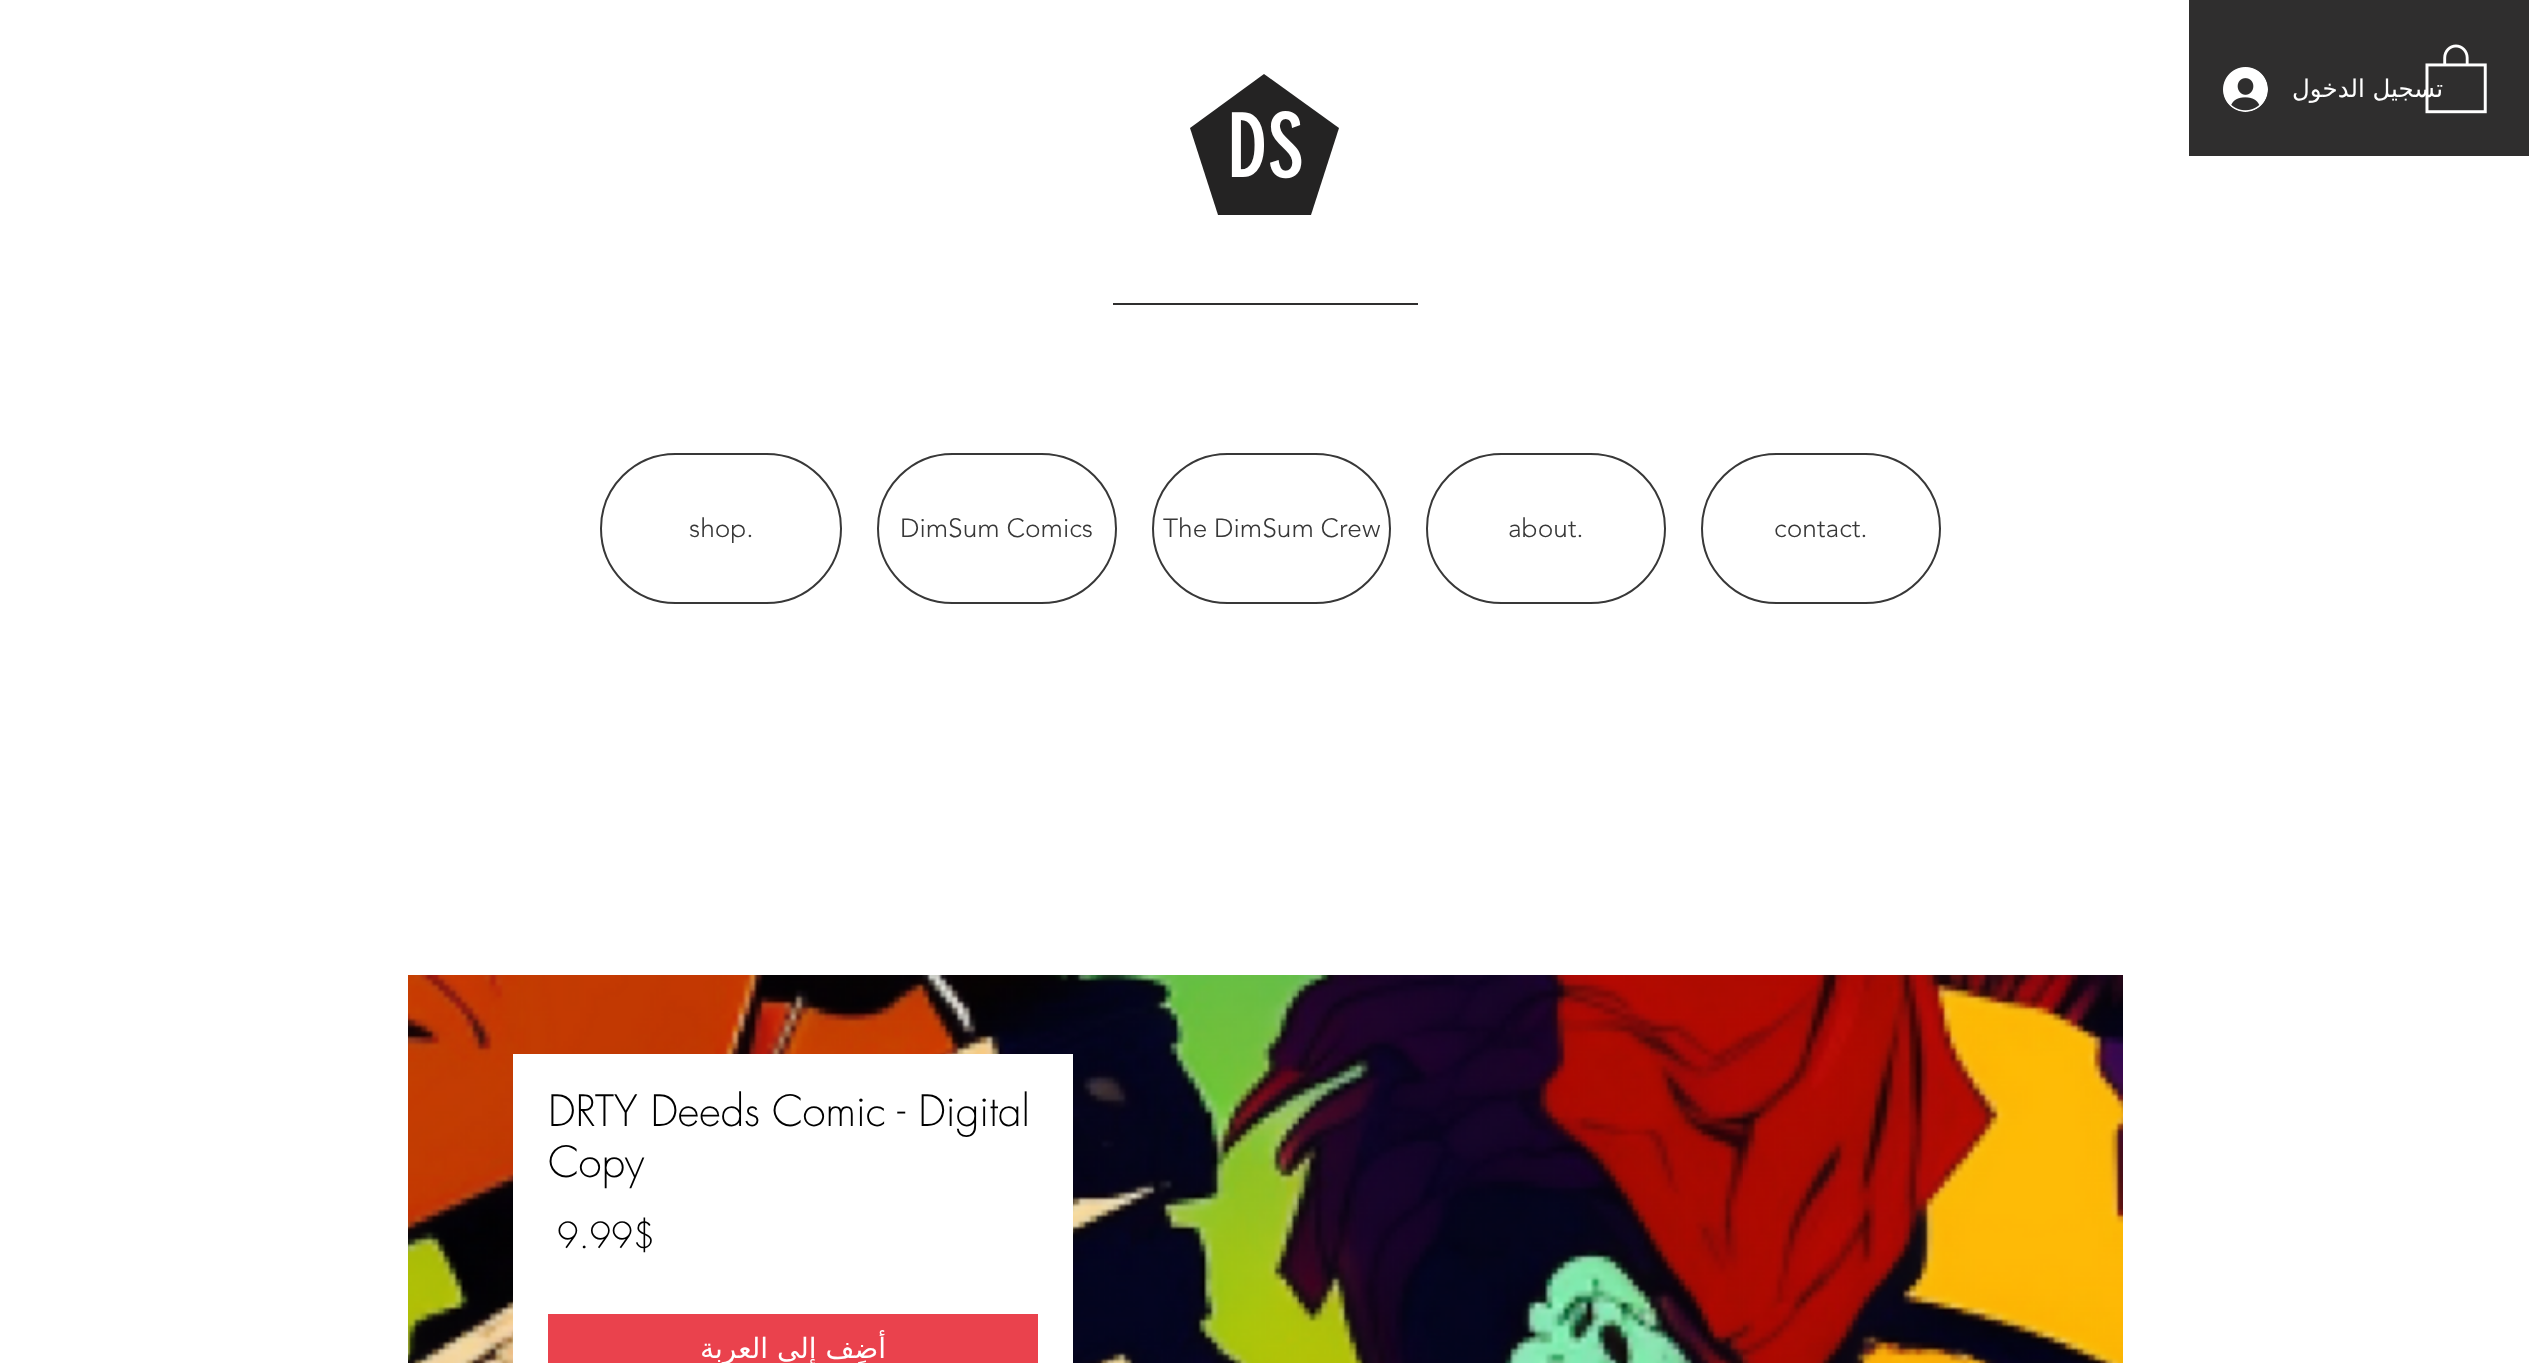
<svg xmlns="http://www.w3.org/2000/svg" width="2529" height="1363">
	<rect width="100%" height="100%" fill="#FFFFFF" />
	<rect x="2189" y="0" width="340" height="156" fill="#2F2E2E" />
	<image x="2223" y="67" width="45" height="45" href="assets/img1.png" />
	<text x="2443" y="97" font-family="DejaVu Sans" font-size="24.5" direction="rtl" fill="#FFFFFF">تسجيل الدخول</text>
	<image x="2425" y="44" width="62" height="70" href="assets/img2.png" />
	<path d="M1218 215L1190 128L1264 74L1339 128L1311 215Z" fill="#242323" />
	<text x="1227" y="177" font-family="'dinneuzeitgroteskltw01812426'" font-size="88" fill="#FFFFFF">DS</text>
	<rect x="1113" y="303" width="305" height="2" fill="#2F2E2E" />
	<rect x="601" y="454" width="240" height="149" rx="74.5" fill="none" stroke="#383838" stroke-width="2" />
	<text x="689" y="537" font-family="'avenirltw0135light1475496'" font-size="26.25" font-weight="300" fill="#383838">shop.</text>
	<rect x="878" y="454" width="238" height="149" rx="74.5" fill="none" stroke="#383838" stroke-width="2" />
	<text x="900" y="537" font-family="'avenirltw0135light1475496'" font-size="26.25" font-weight="300" fill="#383838">DimSum Comics</text>
	<rect x="1153" y="454" width="237" height="149" rx="74.5" fill="none" stroke="#383838" stroke-width="2" />
	<text x="1163" y="537" font-family="'avenirltw0135light1475496'" font-size="26.25" font-weight="300" fill="#383838">The DimSum Crew</text>
	<rect x="1427" y="454" width="238" height="149" rx="74.5" fill="none" stroke="#383838" stroke-width="2" />
	<text x="1508" y="537" font-family="'avenirltw0135light1475496'" font-size="26.25" font-weight="300" fill="#383838">about.</text>
	<rect x="1702" y="454" width="238" height="149" rx="74.5" fill="none" stroke="#383838" stroke-width="2" />
	<text x="1774" y="537" font-family="'avenirltw0135light1475496'" font-size="26.25" font-weight="300" fill="#383838">contact.</text>
	<image x="408" y="975" width="1715" height="388" href="assets/img3.png" />
	<rect x="513" y="1054" width="560" height="309" fill="#FFFFFF" />
	<g font-family="futura" font-size="42" font-weight="300" fill="#000000">
		<text x="548" y="1126">DRTY Deeds Comic - Digital</text>
		<text x="548" y="1177">Copy</text>
	</g>
	<text x="557" y="1248" font-family="futura" font-size="35" font-weight="300" fill="#000000">9.99$</text>
	<rect x="548" y="1314" width="490" height="49" fill="#EA424D" />
	<text x="886" y="1358" font-family="DejaVu Sans" font-size="28" direction="rtl" fill="#FFFFFF">أضِف إلى العربة</text>
</svg>
